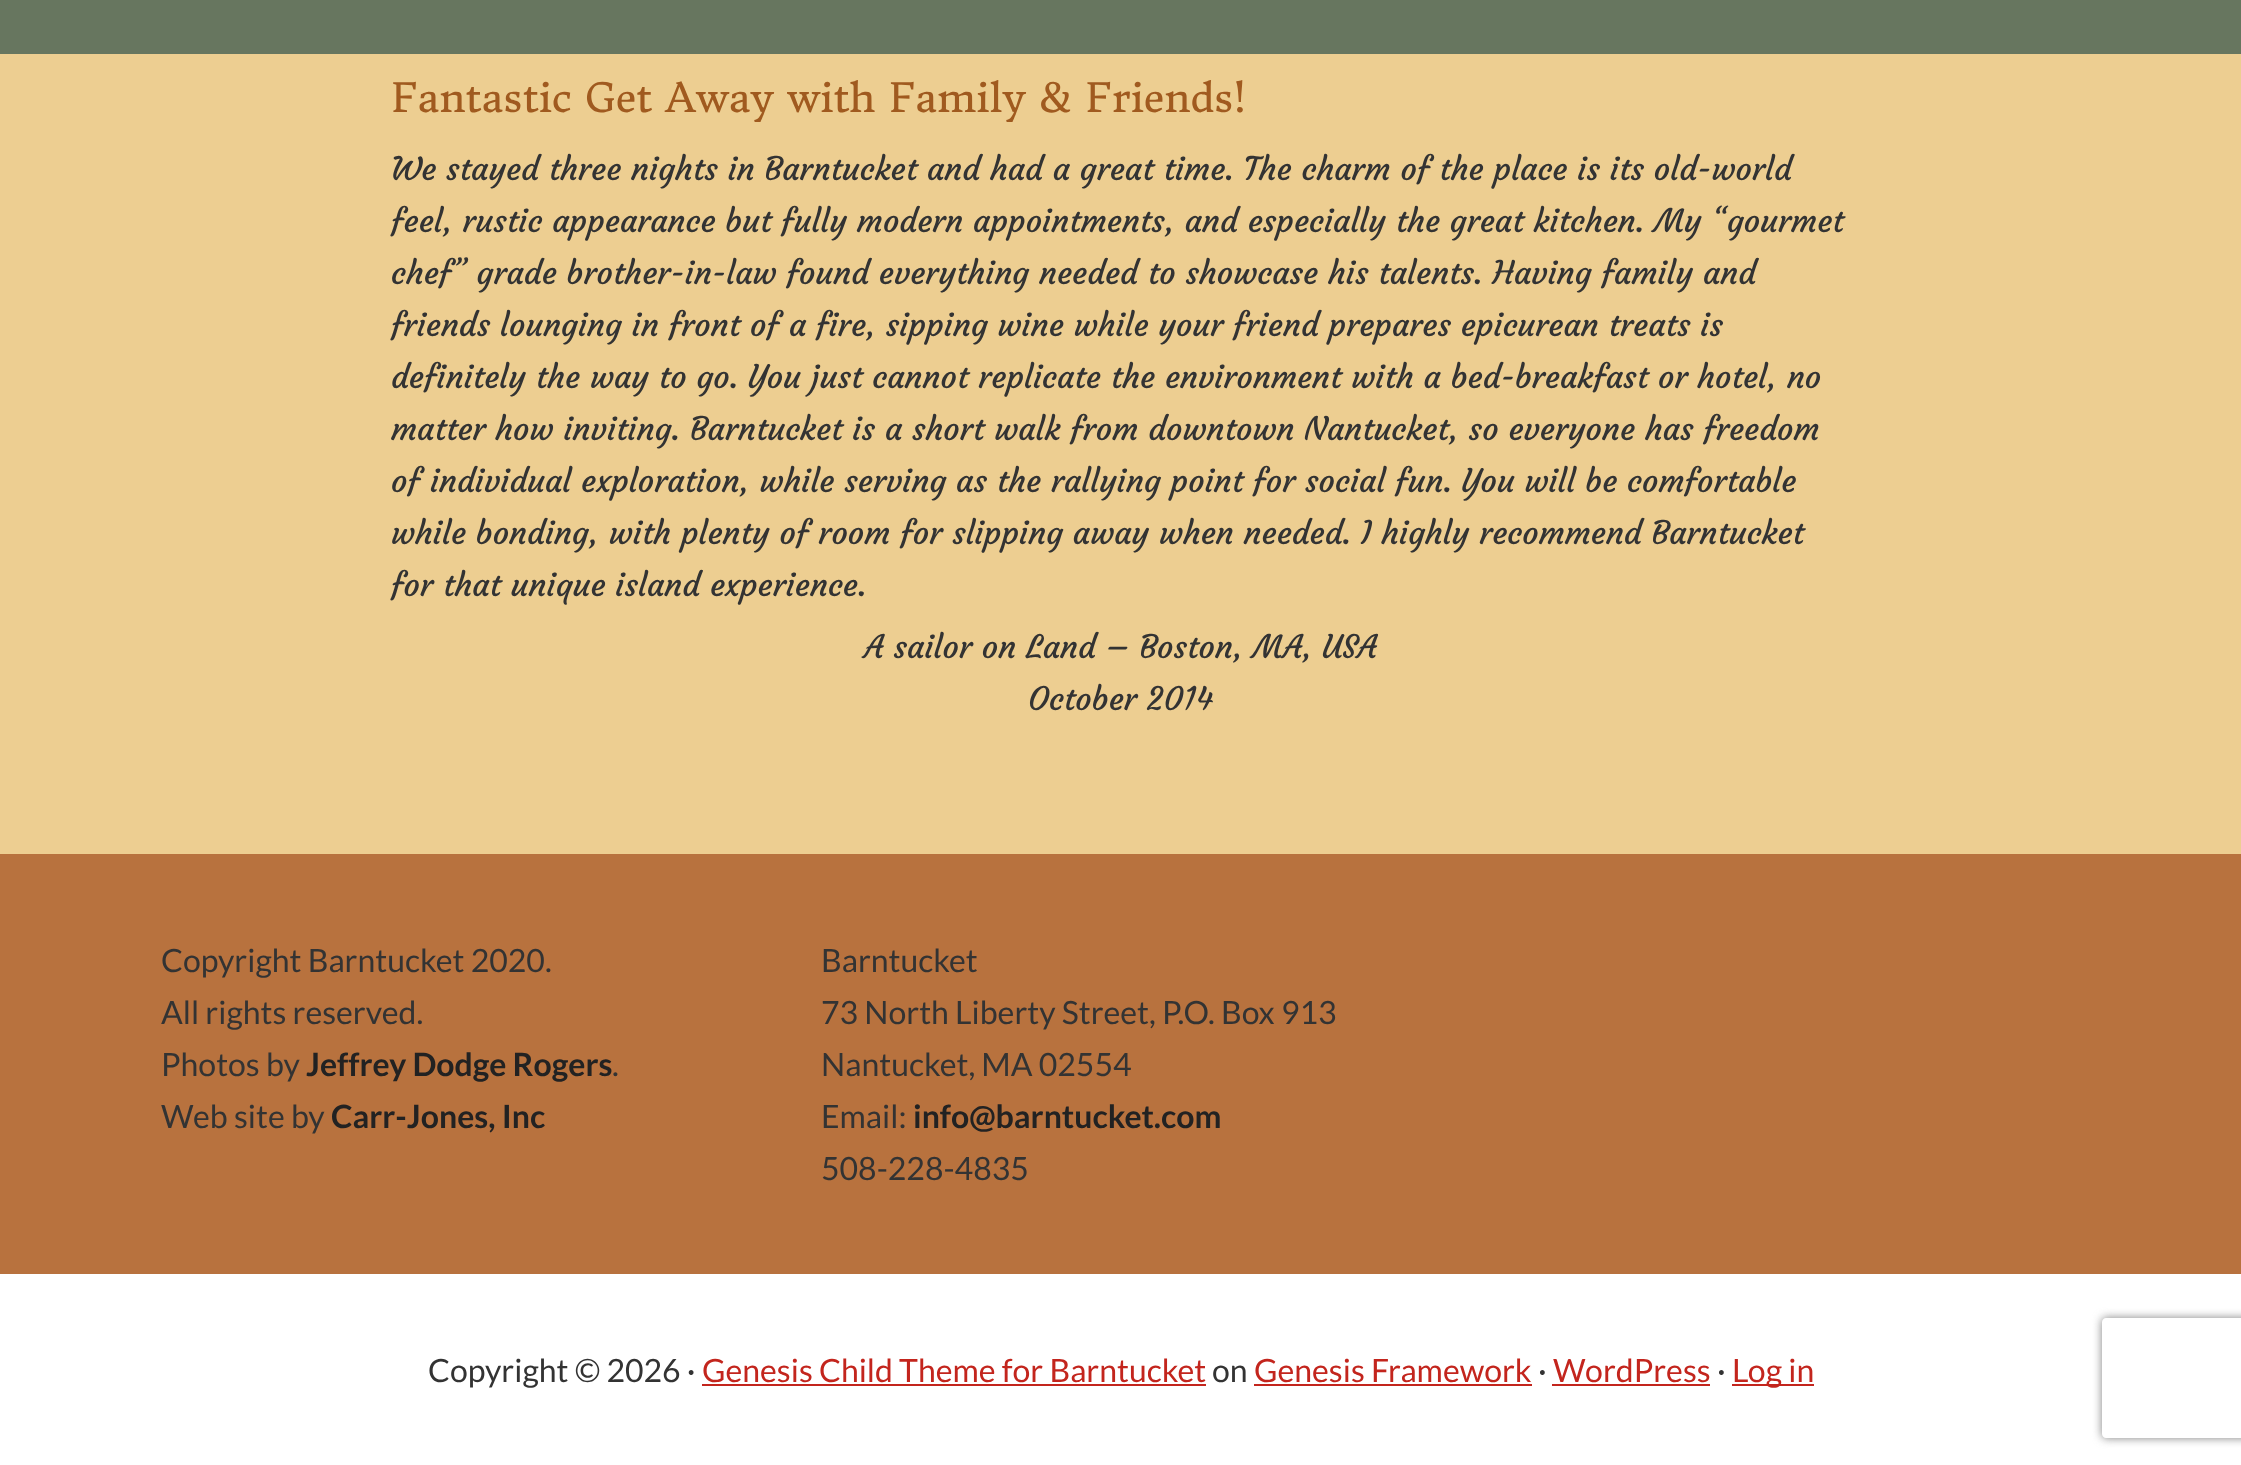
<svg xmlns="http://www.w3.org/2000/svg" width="2241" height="1465">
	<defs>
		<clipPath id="clip1"><path d="M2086 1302H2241V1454H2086ZM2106 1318H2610C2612 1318 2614 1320 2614 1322V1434C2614 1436 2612 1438 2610 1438H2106C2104 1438 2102 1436 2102 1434V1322C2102 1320 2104 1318 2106 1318Z" clip-rule="evenodd" /></clipPath>
	</defs>
	<rect width="100%" height="100%" fill="#EDCE91" />
	<rect x="0" y="0" width="2241" height="54" fill="#67765F" />
	<text x="391" y="112" font-family="Donegal One" font-size="40" fill="#A05A1F">Fantastic Get Away with Family &amp; Friends!</text>
	<g font-family="Courgette" font-size="32" fill="#333333">
		<text x="391" y="180">We stayed three nights in Barntucket and had a great time. The charm of the place is its old-world</text>
		<text x="391" y="232">feel, rustic appearance but fully modern appointments, and especially the great kitchen. My “gourmet</text>
		<text x="391" y="284">chef” grade brother-in-law found everything needed to showcase his talents. Having family and</text>
		<text x="391" y="336">friends lounging in front of a fire, sipping wine while your friend prepares epicurean treats is</text>
		<text x="391" y="388">definitely the way to go. You just cannot replicate the environment with a bed-breakfast or hotel, no</text>
		<text x="391" y="440">matter how inviting. Barntucket is a short walk from downtown Nantucket, so everyone has freedom</text>
		<text x="391" y="492">of individual exploration, while serving as the rallying point for social fun. You will be comfortable</text>
		<text x="391" y="544">while bonding, with plenty of room for slipping away when needed. I highly recommend Barntucket</text>
		<text x="391" y="596">for that unique island experience.</text>
		<text x="864" y="658">A sailor on Land – Boston, MA, USA</text>
		<text x="1028" y="710">October 2014</text>
	</g>
	<rect x="0" y="854" width="2241" height="420" fill="#B8723E" />
	<g font-family="Lato" font-size="32" fill="#333333">
		<text x="161" y="972">Copyright Barntucket 2020.</text>
		<text x="161" y="1024">All rights reserved.</text>
		<text x="161" y="1076">Photos by</text>
	</g>
	<text x="306" y="1076" font-family="Lato" font-size="32" font-weight="700" fill="#222222">Jeffrey Dodge Rogers</text>
	<g font-family="Lato" font-size="32" fill="#333333">
		<text x="612" y="1076">.</text>
		<text x="161" y="1128">Web site by</text>
	</g>
	<text x="331" y="1128" font-family="Lato" font-size="32" font-weight="700" fill="#222222">Carr-Jones, Inc</text>
	<g font-family="Lato" font-size="32" fill="#333333">
		<text x="821" y="972">Barntucket</text>
		<text x="821" y="1024">73 North Liberty Street, P.O. Box 913</text>
		<text x="821" y="1076">Nantucket, MA 02554</text>
		<text x="821" y="1128">Email:</text>
	</g>
	<text x="913" y="1128" font-family="Lato" font-size="32" font-weight="700" fill="#222222">info@barntucket.com</text>
	<text x="821" y="1180" font-family="Lato" font-size="32" fill="#333333">508-228-4835</text>
	<rect x="0" y="1274" width="2241" height="191" fill="#FFFFFF" />
	<text x="428" y="1382" font-family="Lato" font-size="32" fill="#333333">Copyright © 2026 ·</text>
	<text x="702" y="1382" font-family="Lato" font-size="32" fill="#C3251D">Genesis Child Theme for Barntucket</text>
	<rect x="702" y="1384" width="504" height="2" fill="#C3251D" />
	<text x="1212" y="1382" font-family="Lato" font-size="32" fill="#333333">on</text>
	<text x="1254" y="1382" font-family="Lato" font-size="32" fill="#C3251D">Genesis Framework</text>
	<rect x="1254" y="1384" width="278" height="2" fill="#C3251D" />
	<text x="1538" y="1382" font-family="Lato" font-size="32" fill="#333333">·</text>
	<text x="1553" y="1382" font-family="Lato" font-size="32" fill="#C3251D">WordPress</text>
	<rect x="1552" y="1384" width="158" height="2" fill="#C3251D" />
	<text x="1717" y="1382" font-family="Lato" font-size="32" fill="#333333">·</text>
	<rect x="1732" y="1384" width="82" height="2" fill="#C3251D" />
	<text x="1732" y="1382" font-family="Lato" font-size="32" fill="#C3251D">Log in</text>
	<g clip-path="url(#clip1)">
		<rect x="2102" y="1318" width="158" height="120" rx="4" fill="#808080" filter="blur(5px)" />
	</g>
</svg>
